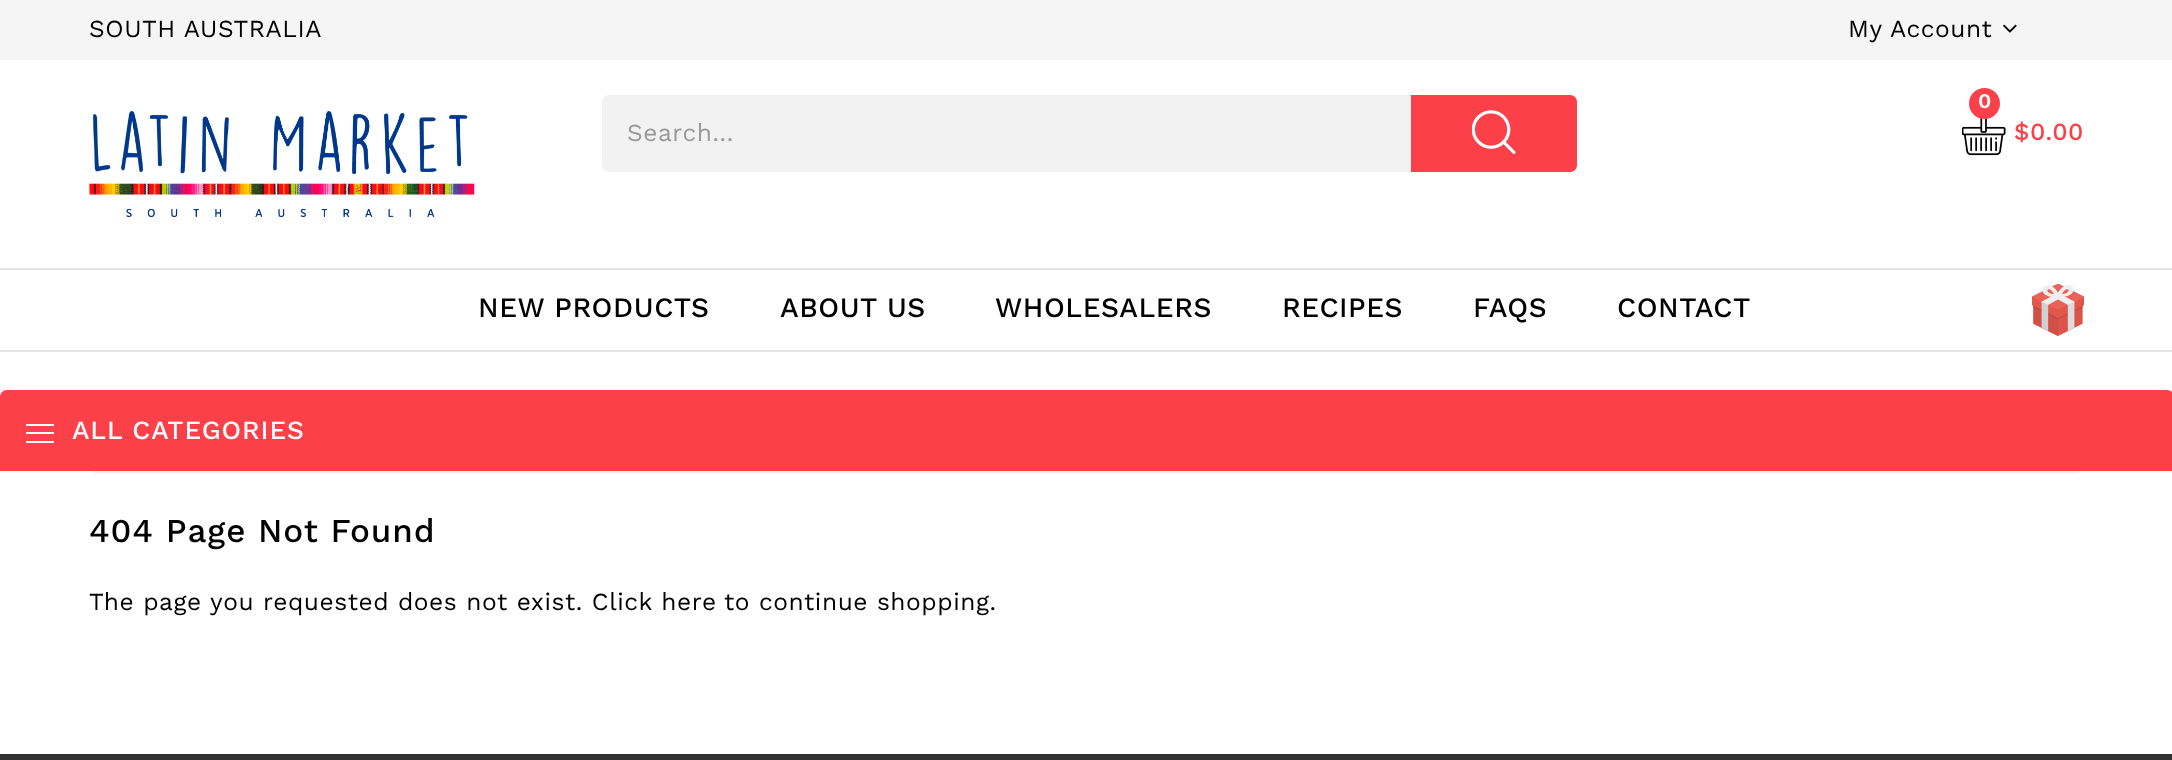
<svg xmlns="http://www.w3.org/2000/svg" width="2172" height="760">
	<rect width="100%" height="100%" fill="#FFFFFF" />
	<rect x="0" y="0" width="2172" height="60" fill="#F5F5F5" />
	<g font-family="Work Sans" font-size="24.5" letter-spacing="0.55" fill="#000000">
		<text x="89" y="37">SOUTH AUSTRALIA</text>
		<text x="1848" y="37">My Account</text>
	</g>
	<image x="2003" y="24" width="14" height="9" href="assets/img1.png" />
	<rect x="0" y="268" width="2172" height="2" fill="#E4E4E4" />
	<image x="89" y="111" width="386" height="106" href="assets/img2.png" />
	<rect x="602" y="95" width="971" height="77" rx="7" fill="#F2F2F2" />
	<text x="627" y="141" font-family="Work Sans" font-size="24.5" letter-spacing="0.55" fill="#999999">Search...</text>
	<path d="M1411 95H1570C1574 95 1577 98 1577 102V165C1577 169 1574 172 1570 172H1411Z" fill="#FC404A" />
	<image x="1472" y="110" width="44" height="44" href="assets/img3.png" />
	<image x="1962" y="118" width="44" height="38" href="assets/img4.png" />
	<circle cx="1984.5" cy="103.5" r="15.5" fill="#FC404A" />
	<text x="1978" y="108" font-family="Work Sans" font-size="21" font-weight="600" letter-spacing="0.55" fill="#FFFFFF">0</text>
	<text x="2014" y="140" font-family="Work Sans" font-size="24.5" font-weight="500" letter-spacing="0.55" fill="#FC404A">$0.00</text>
	<rect x="0" y="350" width="2172" height="2" fill="#E4E4E4" />
	<g font-family="Work Sans" font-size="28" font-weight="500" letter-spacing="0.55" fill="#000000">
		<text x="478" y="317">NEW PRODUCTS</text>
		<text x="780" y="317">ABOUT US</text>
		<text x="995" y="317">WHOLESALERS</text>
		<text x="1282" y="317">RECIPES</text>
		<text x="1473" y="317">FAQS</text>
		<text x="1617" y="317">CONTACT</text>
	</g>
	<image x="2032" y="284" width="52" height="52" href="assets/img5.png" />
	<rect x="89" y="404" width="1995" height="70" rx="9" fill="#F5F5F5" />
	<path d="M7 390H2167C2171 390 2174 393 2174 397V471H0V397C0 393 3 390 7 390Z" fill="#FC404A" />
	<rect x="26" y="424" width="28" height="2" fill="#FFFFFF" />
	<rect x="26" y="432" width="28" height="2" fill="#FFFFFF" />
	<rect x="26" y="441" width="28" height="2" fill="#FFFFFF" />
	<text x="72" y="439" font-family="Work Sans" font-size="26.25" font-weight="500" letter-spacing="0.9" fill="#FFFFFF">ALL CATEGORIES</text>
	<text x="89" y="542" font-family="Work Sans" font-size="33.25" font-weight="500" letter-spacing="0.9" fill="#000000">404 Page Not Found</text>
	<g font-family="Work Sans" font-size="24.5" letter-spacing="0.55" fill="#000000">
		<text x="89" y="610">The page you requested does not exist. Click here</text>
		<text x="724" y="610">to continue shopping.</text>
	</g>
	<rect x="0" y="754" width="2172" height="6" fill="#333333" />
</svg>
